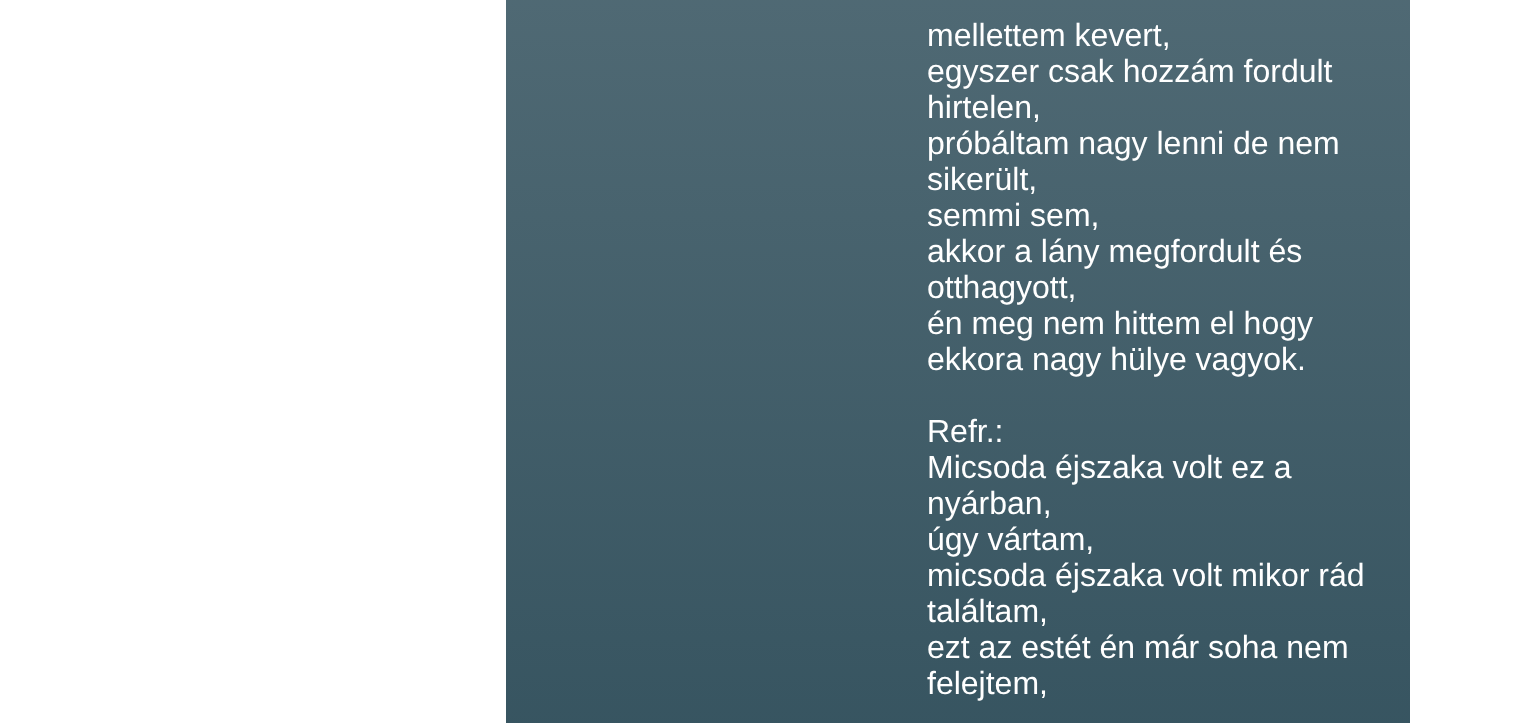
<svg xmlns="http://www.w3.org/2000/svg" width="1523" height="723">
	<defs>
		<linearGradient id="g1" gradientUnits="userSpaceOnUse" x1="958" y1="-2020" x2="958" y2="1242"><stop offset="0" stop-color="#264653" /><stop offset="0.5" stop-color="#5C747E" /><stop offset="1" stop-color="#264653" /></linearGradient>
	</defs>
	<rect width="100%" height="100%" fill="#FFFFFF" />
	<rect x="506" y="0" width="904" height="723" fill="url(#g1)" />
	<g font-family="Liberation Sans" font-size="32" fill="#FFFFFF">
		<text x="927" y="46">mellettem kevert,</text>
		<text x="927" y="82">egyszer csak hozzám fordult</text>
		<text x="927" y="118">hirtelen,</text>
		<text x="927" y="154">próbáltam nagy lenni de nem</text>
		<text x="927" y="190">sikerült,</text>
		<text x="927" y="226">semmi sem,</text>
		<text x="927" y="262">akkor a lány megfordult és</text>
		<text x="927" y="298">otthagyott,</text>
		<text x="927" y="334">én meg nem hittem el hogy</text>
		<text x="927" y="370">ekkora nagy hülye vagyok.</text>
		<text x="927" y="442">Refr.:</text>
		<text x="927" y="478">Micsoda éjszaka volt ez a</text>
		<text x="927" y="514">nyárban,</text>
		<text x="927" y="550">úgy vártam,</text>
		<text x="927" y="586">micsoda éjszaka volt mikor rád</text>
		<text x="927" y="622">találtam,</text>
		<text x="927" y="658">ezt az estét én már soha nem</text>
		<text x="927" y="694">felejtem,</text>
	</g>
</svg>
